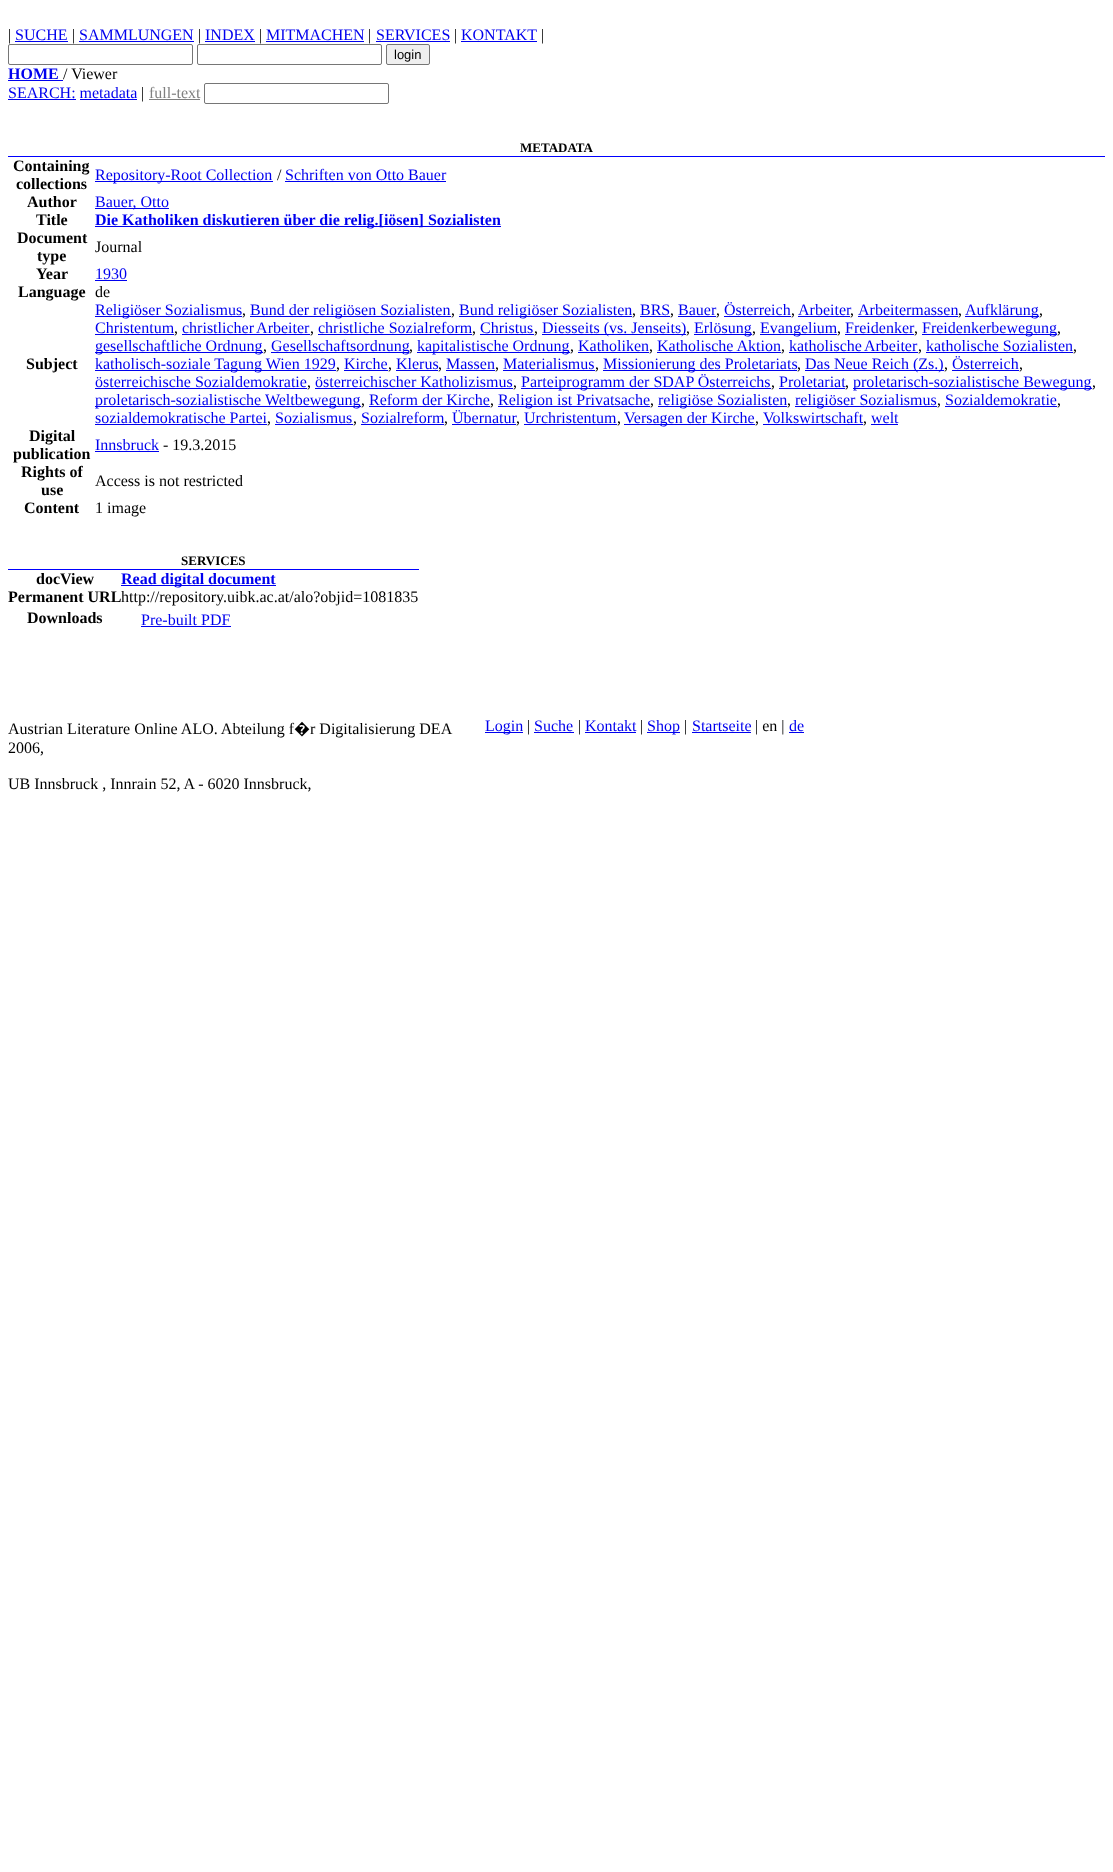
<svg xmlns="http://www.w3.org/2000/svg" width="1113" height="1872">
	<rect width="100%" height="100%" fill="#FFFFFF" />
	<text x="8" y="40" font-family="Liberation Serif" font-size="16" fill="#000000">|</text>
	<text x="15" y="40" font-family="Liberation Serif" font-size="16" fill="#0000EE">SUCHE</text>
	<rect x="15" y="41" width="53" height="1" fill="#0000EE" />
	<text x="72" y="40" font-family="Liberation Serif" font-size="16" fill="#000000">|</text>
	<text x="79" y="40" font-family="Liberation Serif" font-size="16" fill="#0000EE">SAMMLUNGEN</text>
	<rect x="79" y="41" width="115" height="1" fill="#0000EE" />
	<text x="198" y="40" font-family="Liberation Serif" font-size="16" fill="#000000">|</text>
	<text x="205" y="40" font-family="Liberation Serif" font-size="16" fill="#0000EE">INDEX</text>
	<rect x="205" y="41" width="50" height="1" fill="#0000EE" />
	<text x="259" y="40" font-family="Liberation Serif" font-size="16" fill="#000000">|</text>
	<text x="266" y="40" font-family="Liberation Serif" font-size="16" fill="#0000EE">MITMACHEN</text>
	<rect x="266" y="41" width="98" height="1" fill="#0000EE" />
	<text x="368" y="40" font-family="Liberation Serif" font-size="16" fill="#000000">|</text>
	<text x="376" y="40" font-family="Liberation Serif" font-size="16" fill="#0000EE">SERVICES</text>
	<rect x="376" y="41" width="74" height="1" fill="#0000EE" />
	<text x="454" y="40" font-family="Liberation Serif" font-size="16" fill="#000000">|</text>
	<text x="461" y="40" font-family="Liberation Serif" font-size="16" fill="#0000EE">KONTAKT</text>
	<rect x="461" y="41" width="76" height="1" fill="#0000EE" />
	<text x="541" y="40" font-family="Liberation Serif" font-size="16" fill="#000000">|</text>
	<rect x="8.5" y="44.5" width="184" height="20" rx="1.5" fill="none" stroke="#767676" />
	<rect x="197.5" y="44.5" width="184" height="20" rx="1.5" fill="none" stroke="#767676" />
	<rect x="386.5" y="44.5" width="43" height="20" rx="1.5" fill="#EFEFEF" stroke="#767676" />
	<text x="394" y="59" font-family="Liberation Sans" font-size="13" fill="#000000">login</text>
	<text x="8" y="79" font-family="Liberation Serif" font-size="16" font-weight="700" fill="#0000EE">HOME</text>
	<rect x="8" y="80" width="55" height="1" fill="#0000EE" />
	<text x="63" y="79" font-family="Liberation Serif" font-size="16" fill="#000000">/ Viewer</text>
	<text x="8" y="98" font-family="Liberation Serif" font-size="16" fill="#0000EE">SEARCH: metadata</text>
	<rect x="8" y="99" width="68" height="1" fill="#0000EE" />
	<text x="141" y="98" font-family="Liberation Serif" font-size="16" fill="#000000">|</text>
	<text x="149" y="98" font-family="Liberation Serif" font-size="16" fill="#808080">full-text</text>
	<rect x="149" y="99" width="51" height="1" fill="#808080" />
	<rect x="204.5" y="83.5" width="184" height="20" rx="1.5" fill="none" stroke="#767676" />
	<rect x="80" y="99" width="57" height="1" fill="#0000EE" />
	<rect x="8" y="156" width="1097" height="1" fill="#0000FF" />
	<text x="520" y="152" font-family="Liberation Serif" font-size="13" font-weight="700" fill="#000000">METADATA</text>
	<g font-family="Liberation Serif" font-size="16" font-weight="700" fill="#000000">
		<text x="13" y="171">Containing</text>
		<text x="16" y="189">collections</text>
	</g>
	<rect x="95" y="181" width="178" height="1" fill="#0000EE" />
	<text x="95" y="180" font-family="Liberation Serif" font-size="16" fill="#0000EE">Repository-Root Collection</text>
	<text x="277" y="180" font-family="Liberation Serif" font-size="16" fill="#000000">/</text>
	<text x="285" y="180" font-family="Liberation Serif" font-size="16" fill="#0000EE">Schriften von Otto Bauer</text>
	<rect x="285" y="181" width="161" height="1" fill="#0000EE" />
	<text x="27" y="207" font-family="Liberation Serif" font-size="16" font-weight="700" fill="#000000">Author</text>
	<rect x="95" y="208" width="74" height="1" fill="#0000EE" />
	<text x="95" y="207" font-family="Liberation Serif" font-size="16" fill="#0000EE">Bauer, Otto</text>
	<text x="36" y="225" font-family="Liberation Serif" font-size="16" font-weight="700" fill="#000000">Title</text>
	<rect x="95" y="226" width="406" height="1" fill="#0000EE" />
	<text x="95" y="225" font-family="Liberation Serif" font-size="16" font-weight="700" fill="#0000EE">Die Katholiken diskutieren über die relig.[iösen] Sozialisten</text>
	<g font-family="Liberation Serif" font-size="16" font-weight="700" fill="#000000">
		<text x="17" y="243">Document</text>
		<text x="37" y="261">type</text>
	</g>
	<text x="95" y="252" font-family="Liberation Serif" font-size="16" fill="#000000">Journal</text>
	<text x="36" y="279" font-family="Liberation Serif" font-size="16" font-weight="700" fill="#000000">Year</text>
	<text x="95" y="279" font-family="Liberation Serif" font-size="16" fill="#0000EE">1930</text>
	<rect x="95" y="280" width="32" height="1" fill="#0000EE" />
	<text x="18" y="297" font-family="Liberation Serif" font-size="16" font-weight="700" fill="#000000">Language</text>
	<text x="95" y="297" font-family="Liberation Serif" font-size="16" fill="#000000">de</text>
	<text x="26" y="369" font-family="Liberation Serif" font-size="16" font-weight="700" fill="#000000">Subject</text>
	<rect x="95" y="316" width="147" height="1" fill="#0000EE" />
	<text x="95" y="315" font-family="Liberation Serif" font-size="16" fill="#0000EE">Religiöser Sozialismus</text>
	<text x="242" y="315" font-family="Liberation Serif" font-size="16" fill="#000000">,</text>
	<rect x="250" y="316" width="201" height="1" fill="#0000EE" />
	<text x="250" y="315" font-family="Liberation Serif" font-size="16" fill="#0000EE">Bund der religiösen Sozialisten</text>
	<text x="451" y="315" font-family="Liberation Serif" font-size="16" fill="#000000">,</text>
	<rect x="459" y="316" width="173" height="1" fill="#0000EE" />
	<text x="459" y="315" font-family="Liberation Serif" font-size="16" fill="#0000EE">Bund religiöser Sozialisten</text>
	<text x="632" y="315" font-family="Liberation Serif" font-size="16" fill="#000000">,</text>
	<text x="640" y="315" font-family="Liberation Serif" font-size="16" fill="#0000EE">BRS</text>
	<rect x="640" y="316" width="30" height="1" fill="#0000EE" />
	<text x="670" y="315" font-family="Liberation Serif" font-size="16" fill="#000000">,</text>
	<text x="678" y="315" font-family="Liberation Serif" font-size="16" fill="#0000EE">Bauer</text>
	<rect x="678" y="316" width="38" height="1" fill="#0000EE" />
	<text x="716" y="315" font-family="Liberation Serif" font-size="16" fill="#000000">,</text>
	<text x="724" y="315" font-family="Liberation Serif" font-size="16" fill="#0000EE">Österreich</text>
	<rect x="724" y="316" width="67" height="1" fill="#0000EE" />
	<text x="791" y="315" font-family="Liberation Serif" font-size="16" fill="#000000">,</text>
	<text x="798" y="315" font-family="Liberation Serif" font-size="16" fill="#0000EE">Arbeiter</text>
	<rect x="798" y="316" width="52" height="1" fill="#0000EE" />
	<text x="850" y="315" font-family="Liberation Serif" font-size="16" fill="#000000">,</text>
	<text x="858" y="315" font-family="Liberation Serif" font-size="16" fill="#0000EE">Arbeitermassen</text>
	<rect x="858" y="316" width="100" height="1" fill="#0000EE" />
	<text x="958" y="315" font-family="Liberation Serif" font-size="16" fill="#000000">,</text>
	<rect x="965" y="316" width="74" height="1" fill="#0000EE" />
	<text x="965" y="315" font-family="Liberation Serif" font-size="16" fill="#0000EE">Aufklärung</text>
	<text x="1039" y="315" font-family="Liberation Serif" font-size="16" fill="#000000">,</text>
	<text x="95" y="333" font-family="Liberation Serif" font-size="16" fill="#0000EE">Christentum</text>
	<rect x="95" y="334" width="79" height="1" fill="#0000EE" />
	<text x="174" y="333" font-family="Liberation Serif" font-size="16" fill="#000000">,</text>
	<text x="182" y="333" word-spacing="-1" font-family="Liberation Serif" font-size="16" fill="#0000EE">christlicher Arbeiter</text>
	<rect x="182" y="334" width="128" height="1" fill="#0000EE" />
	<text x="310" y="333" font-family="Liberation Serif" font-size="16" fill="#000000">,</text>
	<text x="318" y="333" font-family="Liberation Serif" font-size="16" fill="#0000EE">christliche Sozialreform</text>
	<rect x="318" y="334" width="154" height="1" fill="#0000EE" />
	<text x="472" y="333" font-family="Liberation Serif" font-size="16" fill="#000000">,</text>
	<text x="480" y="333" font-family="Liberation Serif" font-size="16" fill="#0000EE">Christus</text>
	<rect x="480" y="334" width="54" height="1" fill="#0000EE" />
	<text x="534" y="333" font-family="Liberation Serif" font-size="16" fill="#000000">,</text>
	<rect x="542" y="334" width="144" height="1" fill="#0000EE" />
	<text x="542" y="333" font-family="Liberation Serif" font-size="16" fill="#0000EE">Diesseits (vs. Jenseits)</text>
	<text x="686" y="333" font-family="Liberation Serif" font-size="16" fill="#000000">,</text>
	<rect x="694" y="334" width="58" height="1" fill="#0000EE" />
	<text x="694" y="333" font-family="Liberation Serif" font-size="16" fill="#0000EE">Erlösung</text>
	<text x="752" y="333" font-family="Liberation Serif" font-size="16" fill="#000000">,</text>
	<rect x="760" y="334" width="77" height="1" fill="#0000EE" />
	<text x="760" y="333" font-family="Liberation Serif" font-size="16" fill="#0000EE">Evangelium</text>
	<text x="837" y="333" font-family="Liberation Serif" font-size="16" fill="#000000">,</text>
	<text x="845" y="333" font-family="Liberation Serif" font-size="16" fill="#0000EE">Freidenker</text>
	<rect x="845" y="334" width="69" height="1" fill="#0000EE" />
	<text x="914" y="333" font-family="Liberation Serif" font-size="16" fill="#000000">,</text>
	<rect x="922" y="334" width="135" height="1" fill="#0000EE" />
	<text x="922" y="333" font-family="Liberation Serif" font-size="16" fill="#0000EE">Freidenkerbewegung</text>
	<text x="1057" y="333" font-family="Liberation Serif" font-size="16" fill="#000000">,</text>
	<rect x="95" y="352" width="168" height="1" fill="#0000EE" />
	<text x="95" y="351" font-family="Liberation Serif" font-size="16" fill="#0000EE">gesellschaftliche Ordnung</text>
	<text x="263" y="351" font-family="Liberation Serif" font-size="16" fill="#000000">,</text>
	<rect x="271" y="352" width="138" height="1" fill="#0000EE" />
	<text x="271" y="351" font-family="Liberation Serif" font-size="16" fill="#0000EE">Gesellschaftsordnung</text>
	<text x="409" y="351" font-family="Liberation Serif" font-size="16" fill="#000000">,</text>
	<rect x="417" y="352" width="153" height="1" fill="#0000EE" />
	<text x="417" y="351" font-family="Liberation Serif" font-size="16" fill="#0000EE">kapitalistische Ordnung</text>
	<text x="570" y="351" font-family="Liberation Serif" font-size="16" fill="#000000">,</text>
	<text x="578" y="351" font-family="Liberation Serif" font-size="16" fill="#0000EE">Katholiken</text>
	<rect x="578" y="352" width="71" height="1" fill="#0000EE" />
	<text x="649" y="351" font-family="Liberation Serif" font-size="16" fill="#000000">,</text>
	<text x="657" y="351" font-family="Liberation Serif" font-size="16" fill="#0000EE">Katholische Aktion</text>
	<rect x="657" y="352" width="124" height="1" fill="#0000EE" />
	<text x="781" y="351" font-family="Liberation Serif" font-size="16" fill="#000000">,</text>
	<text x="789" y="351" word-spacing="-1" font-family="Liberation Serif" font-size="16" fill="#0000EE">katholische Arbeiter</text>
	<rect x="789" y="352" width="129" height="1" fill="#0000EE" />
	<text x="918" y="351" font-family="Liberation Serif" font-size="16" fill="#000000">,</text>
	<text x="926" y="351" font-family="Liberation Serif" font-size="16" fill="#0000EE">katholische Sozialisten</text>
	<rect x="926" y="352" width="147" height="1" fill="#0000EE" />
	<text x="1073" y="351" font-family="Liberation Serif" font-size="16" fill="#000000">,</text>
	<rect x="95" y="370" width="241" height="1" fill="#0000EE" />
	<text x="95" y="369" font-family="Liberation Serif" font-size="16" fill="#0000EE">katholisch-soziale Tagung Wien 1929</text>
	<text x="336" y="369" font-family="Liberation Serif" font-size="16" fill="#000000">,</text>
	<text x="344" y="369" font-family="Liberation Serif" font-size="16" fill="#0000EE">Kirche</text>
	<rect x="344" y="370" width="44" height="1" fill="#0000EE" />
	<text x="388" y="369" font-family="Liberation Serif" font-size="16" fill="#000000">,</text>
	<text x="396" y="369" font-family="Liberation Serif" font-size="16" fill="#0000EE">Klerus</text>
	<rect x="396" y="370" width="42" height="1" fill="#0000EE" />
	<text x="438" y="369" font-family="Liberation Serif" font-size="16" fill="#000000">,</text>
	<text x="446" y="369" font-family="Liberation Serif" font-size="16" fill="#0000EE">Massen</text>
	<rect x="446" y="370" width="49" height="1" fill="#0000EE" />
	<text x="495" y="369" font-family="Liberation Serif" font-size="16" fill="#000000">,</text>
	<text x="503" y="369" font-family="Liberation Serif" font-size="16" fill="#0000EE">Materialismus</text>
	<rect x="503" y="370" width="92" height="1" fill="#0000EE" />
	<text x="595" y="369" font-family="Liberation Serif" font-size="16" fill="#000000">,</text>
	<rect x="603" y="370" width="194" height="1" fill="#0000EE" />
	<text x="603" y="369" font-family="Liberation Serif" font-size="16" fill="#0000EE">Missionierung des Proletariats</text>
	<text x="797" y="369" font-family="Liberation Serif" font-size="16" fill="#000000">,</text>
	<rect x="805" y="370" width="139" height="1" fill="#0000EE" />
	<text x="805" y="369" font-family="Liberation Serif" font-size="16" fill="#0000EE">Das Neue Reich (Zs.)</text>
	<text x="944" y="369" font-family="Liberation Serif" font-size="16" fill="#000000">,</text>
	<text x="952" y="369" font-family="Liberation Serif" font-size="16" fill="#0000EE">Österreich</text>
	<rect x="952" y="370" width="67" height="1" fill="#0000EE" />
	<text x="1019" y="369" font-family="Liberation Serif" font-size="16" fill="#000000">,</text>
	<text x="95" y="387" font-family="Liberation Serif" font-size="16" fill="#0000EE">österreichische Sozialdemokratie</text>
	<rect x="95" y="388" width="212" height="1" fill="#0000EE" />
	<text x="307" y="387" font-family="Liberation Serif" font-size="16" fill="#000000">,</text>
	<text x="315" y="387" font-family="Liberation Serif" font-size="16" fill="#0000EE">österreichischer Katholizismus</text>
	<rect x="315" y="388" width="198" height="1" fill="#0000EE" />
	<text x="513" y="387" font-family="Liberation Serif" font-size="16" fill="#000000">,</text>
	<rect x="521" y="388" width="250" height="1" fill="#0000EE" />
	<text x="521" y="387" font-family="Liberation Serif" font-size="16" fill="#0000EE">Parteiprogramm der SDAP Österreichs</text>
	<text x="771" y="387" font-family="Liberation Serif" font-size="16" fill="#000000">,</text>
	<text x="779" y="387" font-family="Liberation Serif" font-size="16" fill="#0000EE">Proletariat</text>
	<rect x="779" y="388" width="66" height="1" fill="#0000EE" />
	<text x="845" y="387" font-family="Liberation Serif" font-size="16" fill="#000000">,</text>
	<rect x="853" y="388" width="239" height="1" fill="#0000EE" />
	<text x="853" y="387" font-family="Liberation Serif" font-size="16" fill="#0000EE">proletarisch-sozialistische Bewegung</text>
	<text x="1092" y="387" font-family="Liberation Serif" font-size="16" fill="#000000">,</text>
	<rect x="95" y="406" width="266" height="1" fill="#0000EE" />
	<text x="95" y="405" font-family="Liberation Serif" font-size="16" fill="#0000EE">proletarisch-sozialistische Weltbewegung</text>
	<text x="361" y="405" font-family="Liberation Serif" font-size="16" fill="#000000">,</text>
	<text x="369" y="405" font-family="Liberation Serif" font-size="16" fill="#0000EE">Reform der Kirche</text>
	<rect x="369" y="406" width="121" height="1" fill="#0000EE" />
	<text x="490" y="405" font-family="Liberation Serif" font-size="16" fill="#000000">,</text>
	<rect x="498" y="406" width="152" height="1" fill="#0000EE" />
	<text x="498" y="405" font-family="Liberation Serif" font-size="16" fill="#0000EE">Religion ist Privatsache</text>
	<text x="650" y="405" font-family="Liberation Serif" font-size="16" fill="#000000">,</text>
	<rect x="658" y="406" width="129" height="1" fill="#0000EE" />
	<text x="658" y="405" font-family="Liberation Serif" font-size="16" fill="#0000EE">religiöse Sozialisten</text>
	<text x="787" y="405" font-family="Liberation Serif" font-size="16" fill="#000000">,</text>
	<rect x="795" y="406" width="142" height="1" fill="#0000EE" />
	<text x="795" y="405" font-family="Liberation Serif" font-size="16" fill="#0000EE">religiöser Sozialismus</text>
	<text x="937" y="405" font-family="Liberation Serif" font-size="16" fill="#000000">,</text>
	<text x="945" y="405" font-family="Liberation Serif" font-size="16" fill="#0000EE">Sozialdemokratie</text>
	<rect x="945" y="406" width="112" height="1" fill="#0000EE" />
	<text x="1057" y="405" font-family="Liberation Serif" font-size="16" fill="#000000">,</text>
	<text x="95" y="423" font-family="Liberation Serif" font-size="16" fill="#0000EE">sozialdemokratische Partei</text>
	<rect x="95" y="424" width="172" height="1" fill="#0000EE" />
	<text x="267" y="423" font-family="Liberation Serif" font-size="16" fill="#000000">,</text>
	<text x="275" y="423" font-family="Liberation Serif" font-size="16" fill="#0000EE">Sozialismus</text>
	<rect x="275" y="424" width="78" height="1" fill="#0000EE" />
	<text x="353" y="423" font-family="Liberation Serif" font-size="16" fill="#000000">,</text>
	<text x="361" y="423" font-family="Liberation Serif" font-size="16" fill="#0000EE">Sozialreform</text>
	<rect x="361" y="424" width="83" height="1" fill="#0000EE" />
	<text x="444" y="423" font-family="Liberation Serif" font-size="16" fill="#000000">,</text>
	<text x="452" y="423" font-family="Liberation Serif" font-size="16" fill="#0000EE">Übernatur</text>
	<rect x="452" y="424" width="64" height="1" fill="#0000EE" />
	<text x="516" y="423" font-family="Liberation Serif" font-size="16" fill="#000000">,</text>
	<text x="524" y="423" font-family="Liberation Serif" font-size="16" fill="#0000EE">Urchristentum</text>
	<rect x="524" y="424" width="93" height="1" fill="#0000EE" />
	<text x="617" y="423" font-family="Liberation Serif" font-size="16" fill="#000000">,</text>
	<rect x="624" y="424" width="131" height="1" fill="#0000EE" />
	<text x="624" y="423" font-family="Liberation Serif" font-size="16" fill="#0000EE">Versagen der Kirche</text>
	<text x="755" y="423" font-family="Liberation Serif" font-size="16" fill="#000000">,</text>
	<text x="763" y="423" font-family="Liberation Serif" font-size="16" fill="#0000EE">Volkswirtschaft</text>
	<rect x="763" y="424" width="100" height="1" fill="#0000EE" />
	<text x="863" y="423" font-family="Liberation Serif" font-size="16" fill="#000000">,</text>
	<text x="871" y="423" font-family="Liberation Serif" font-size="16" fill="#0000EE">welt</text>
	<rect x="871" y="424" width="27" height="1" fill="#0000EE" />
	<g font-family="Liberation Serif" font-size="16" font-weight="700" fill="#000000">
		<text x="29" y="441">Digital</text>
		<text x="13" y="459">publication</text>
	</g>
	<text x="95" y="450" font-family="Liberation Serif" font-size="16" fill="#0000EE">Innsbruck</text>
	<rect x="95" y="451" width="64" height="1" fill="#0000EE" />
	<text x="163" y="450" font-family="Liberation Serif" font-size="16" fill="#000000">- 19.3.2015</text>
	<g font-family="Liberation Serif" font-size="16" font-weight="700" fill="#000000">
		<text x="21" y="477">Rights of</text>
		<text x="41" y="495">use</text>
	</g>
	<text x="95" y="486" font-family="Liberation Serif" font-size="16" fill="#000000">Access is not restricted</text>
	<text x="24" y="513" font-family="Liberation Serif" font-size="16" font-weight="700" fill="#000000">Content</text>
	<text x="95" y="513" font-family="Liberation Serif" font-size="16" fill="#000000">1 image</text>
	<rect x="8" y="569" width="411" height="1" fill="#0000FF" />
	<text x="181" y="565" font-family="Liberation Serif" font-size="13" font-weight="700" fill="#000000">SERVICES</text>
	<text x="36" y="584" font-family="Liberation Serif" font-size="16" font-weight="700" fill="#000000">docView</text>
	<rect x="121" y="585" width="155" height="1" fill="#0000EE" />
	<text x="121" y="584" font-family="Liberation Serif" font-size="16" font-weight="700" fill="#0000EE">Read digital document</text>
	<text x="8" y="602" font-family="Liberation Serif" font-size="16" font-weight="700" fill="#000000">Permanent URL</text>
	<text x="121" y="602" font-family="Liberation Serif" font-size="16" fill="#000000">http://repository.uibk.ac.at/alo?objid=1081835</text>
	<text x="27" y="623" font-family="Liberation Serif" font-size="16" font-weight="700" fill="#000000">Downloads</text>
	<text x="141" y="625" font-family="Liberation Serif" font-size="16" fill="#0000EE">Pre-built PDF</text>
	<rect x="141" y="626" width="90" height="1" fill="#0000EE" />
	<text x="8" y="734" font-family="Liberation Serif" font-size="16" fill="#000000">Austrian Literature Online ALO. Abteilung f</text>
	<text x="294" y="734" font-family="Noto Sans" font-size="16" fill="#000000">�</text>
	<g font-family="Liberation Serif" font-size="16" fill="#000000">
		<text x="310" y="734">r Digitalisierung DEA</text>
		<text x="8" y="753">2006,</text>
		<text x="8" y="789">UB Innsbruck , Innrain 52, A - 6020 Innsbruck,</text>
	</g>
	<rect x="485" y="732" width="38" height="1" fill="#0000EE" />
	<text x="485" y="731" font-family="Liberation Serif" font-size="16" fill="#0000EE">Login</text>
	<text x="527" y="731" font-family="Liberation Serif" font-size="16" fill="#000000">|</text>
	<text x="534" y="731" font-family="Liberation Serif" font-size="16" fill="#0000EE">Suche</text>
	<rect x="534" y="732" width="40" height="1" fill="#0000EE" />
	<text x="578" y="731" font-family="Liberation Serif" font-size="16" fill="#000000">|</text>
	<text x="585" y="731" font-family="Liberation Serif" font-size="16" fill="#0000EE">Kontakt</text>
	<rect x="585" y="732" width="51" height="1" fill="#0000EE" />
	<text x="640" y="731" font-family="Liberation Serif" font-size="16" fill="#000000">|</text>
	<rect x="647" y="732" width="33" height="1" fill="#0000EE" />
	<text x="647" y="731" font-family="Liberation Serif" font-size="16" fill="#0000EE">Shop</text>
	<text x="684" y="731" font-family="Liberation Serif" font-size="16" fill="#000000">|</text>
	<text x="692" y="731" font-family="Liberation Serif" font-size="16" fill="#0000EE">Startseite</text>
	<rect x="692" y="732" width="59" height="1" fill="#0000EE" />
	<text x="755" y="731" font-family="Liberation Serif" font-size="16" fill="#000000">| en |</text>
	<text x="789" y="731" font-family="Liberation Serif" font-size="16" fill="#0000EE">de</text>
	<rect x="789" y="732" width="15" height="1" fill="#0000EE" />
</svg>
